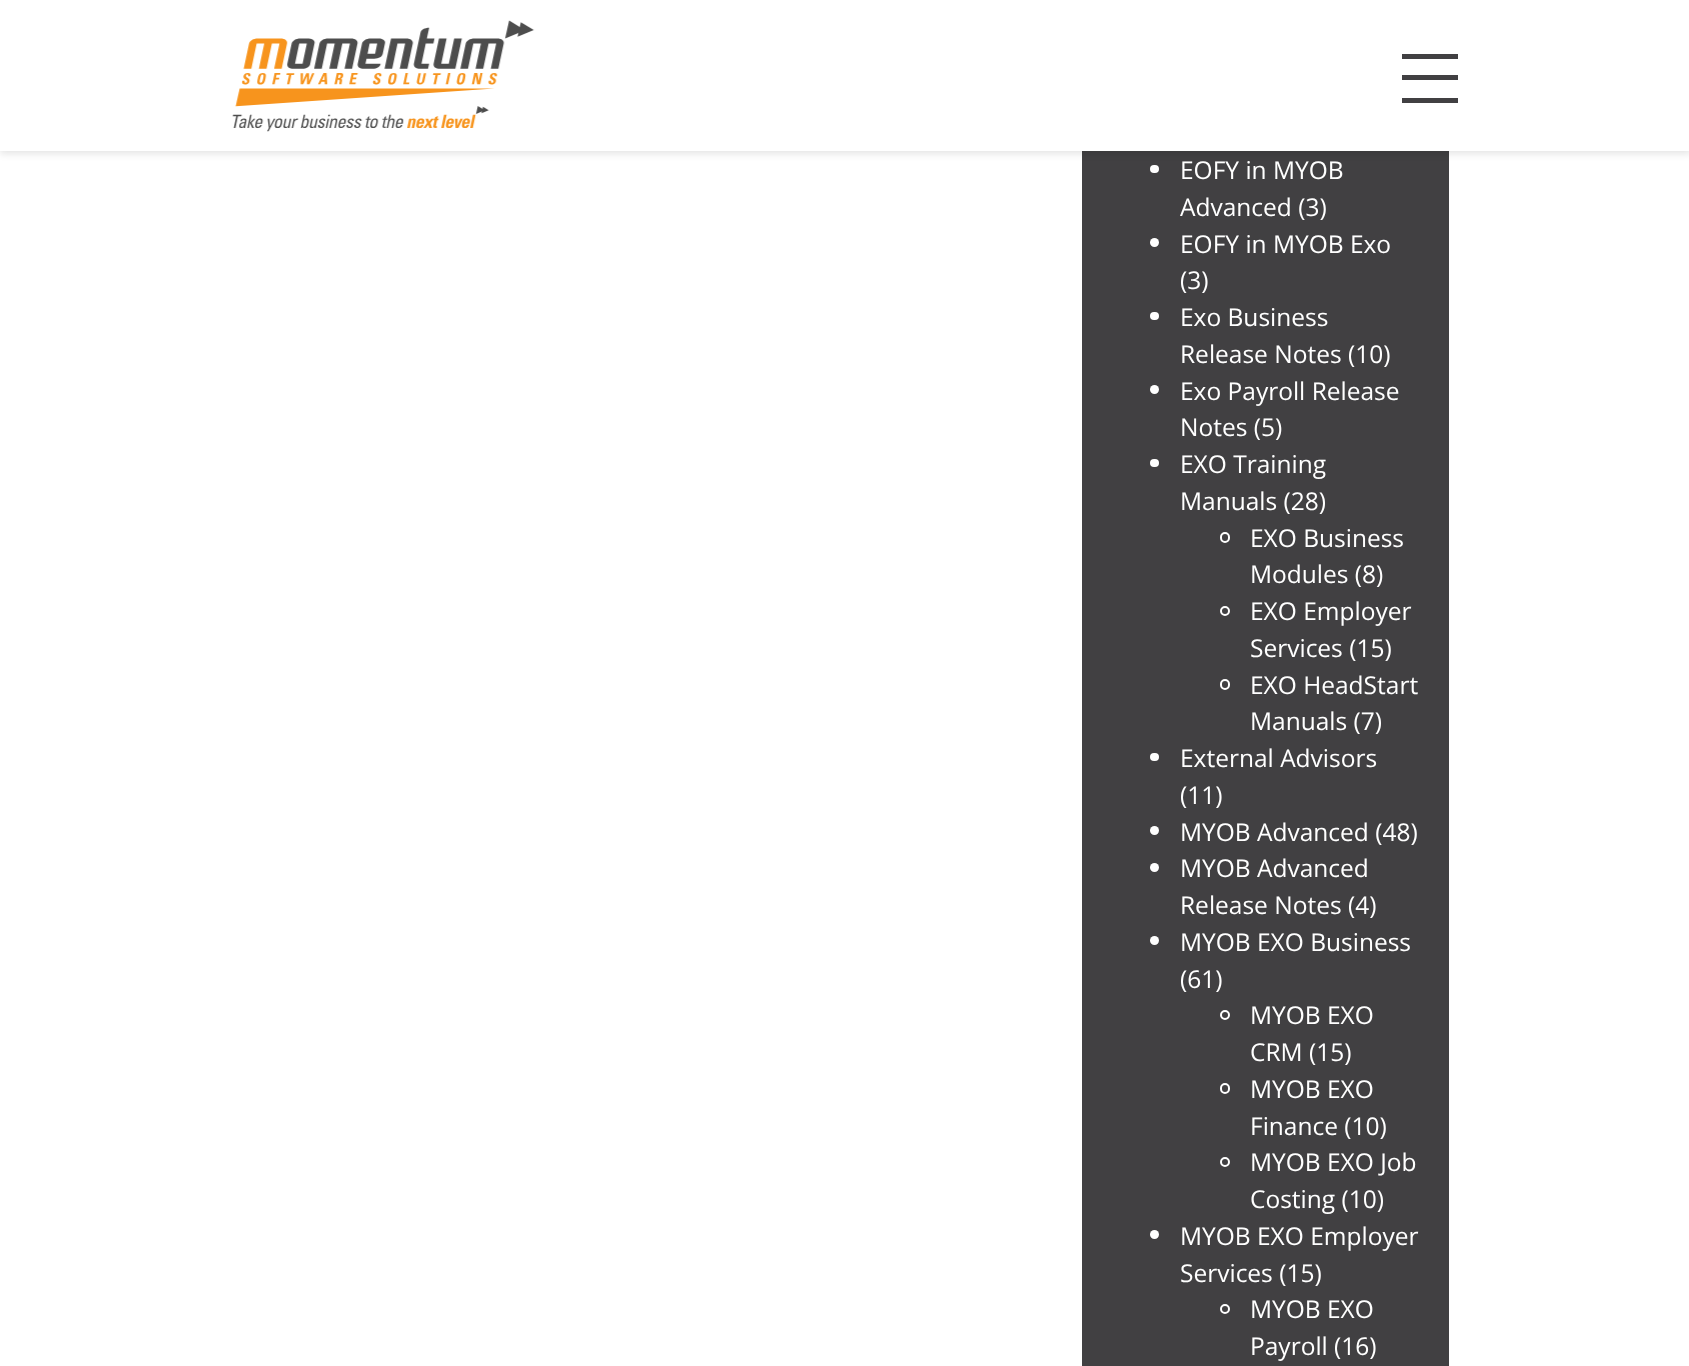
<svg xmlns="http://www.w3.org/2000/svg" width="1689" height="1366">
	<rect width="100%" height="100%" fill="#FFFFFF" />
	<rect x="1082" y="151" width="367" height="1215" fill="#414042" />
	<rect x="1150" y="165" width="9" height="8" rx="4" fill="#FFFFFF" />
	<rect x="0" y="4" width="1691" height="150" fill="#000000" fill-opacity="0.1" filter="blur(3.5px)" />
	<rect x="0" y="0" width="1689" height="151" fill="#FFFFFF" />
	<image x="232" y="20" width="303" height="112" href="assets/img1.png" />
	<rect x="1402" y="54" width="56" height="5" fill="#414042" />
	<rect x="1402" y="75" width="56" height="5" fill="#414042" />
	<rect x="1402" y="98" width="56" height="5" fill="#414042" />
	<g font-family="Open Sans" font-size="24.5" fill="#FFFFFF">
		<text x="1180" y="179">EOFY in MYOB</text>
		<text x="1180" y="216">Advanced (3)</text>
	</g>
	<circle cx="1154.5" cy="242.5" r="4.5" fill="#FFFFFF" />
	<g font-family="Open Sans" font-size="24.5" fill="#FFFFFF">
		<text x="1180" y="253">EOFY in MYOB Exo</text>
		<text x="1180" y="289">(3)</text>
	</g>
	<rect x="1150" y="312" width="9" height="8" rx="4" fill="#FFFFFF" />
	<g font-family="Open Sans" font-size="24.5" fill="#FFFFFF">
		<text x="1180" y="326">Exo Business</text>
		<text x="1180" y="363">Release Notes (10)</text>
	</g>
	<circle cx="1154.5" cy="389.5" r="4.5" fill="#FFFFFF" />
	<g font-family="Open Sans" font-size="24.5" fill="#FFFFFF">
		<text x="1180" y="400">Exo Payroll Release</text>
		<text x="1180" y="436">Notes (5)</text>
	</g>
	<rect x="1150" y="459" width="9" height="8" rx="4" fill="#FFFFFF" />
	<g font-family="Open Sans" font-size="24.5" fill="#FFFFFF">
		<text x="1180" y="473">EXO Training</text>
		<text x="1180" y="510">Manuals (28)</text>
	</g>
	<rect x="1221" y="533" width="8" height="9" rx="4" fill="none" stroke="#FFFFFF" stroke-width="2" />
	<g font-family="Open Sans" font-size="24.5" fill="#FFFFFF">
		<text x="1250" y="547">EXO Business</text>
		<text x="1250" y="583">Modules (8)</text>
	</g>
	<circle cx="1225" cy="611" r="4" fill="none" stroke="#FFFFFF" stroke-width="2" />
	<g font-family="Open Sans" font-size="24.5" fill="#FFFFFF">
		<text x="1250" y="620">EXO Employer</text>
		<text x="1250" y="657">Services (15)</text>
	</g>
	<rect x="1221" y="680" width="8" height="9" rx="4" fill="none" stroke="#FFFFFF" stroke-width="2" />
	<g font-family="Open Sans" font-size="24.5" fill="#FFFFFF">
		<text x="1250" y="694">EXO HeadStart</text>
		<text x="1250" y="730">Manuals (7)</text>
	</g>
	<rect x="1150" y="753" width="9" height="8" rx="4" fill="#FFFFFF" />
	<g font-family="Open Sans" font-size="24.5" fill="#FFFFFF">
		<text x="1180" y="767">External Advisors</text>
		<text x="1180" y="804">(11)</text>
	</g>
	<circle cx="1154.5" cy="830.5" r="4.5" fill="#FFFFFF" />
	<text x="1180" y="841" font-family="Open Sans" font-size="24.5" fill="#FFFFFF">MYOB Advanced (48)</text>
	<circle cx="1154.5" cy="867.5" r="4.5" fill="#FFFFFF" />
	<g font-family="Open Sans" font-size="24.5" fill="#FFFFFF">
		<text x="1180" y="877">MYOB Advanced</text>
		<text x="1180" y="914">Release Notes (4)</text>
	</g>
	<circle cx="1154.5" cy="940.5" r="4.5" fill="#FFFFFF" />
	<g font-family="Open Sans" font-size="24.5" fill="#FFFFFF">
		<text x="1180" y="951">MYOB EXO Business</text>
		<text x="1180" y="988">(61)</text>
	</g>
	<circle cx="1225" cy="1015" r="4" fill="none" stroke="#FFFFFF" stroke-width="2" />
	<g font-family="Open Sans" font-size="24.5" fill="#FFFFFF">
		<text x="1250" y="1024">MYOB EXO</text>
		<text x="1250" y="1061">CRM (15)</text>
	</g>
	<rect x="1221" y="1084" width="8" height="9" rx="4" fill="none" stroke="#FFFFFF" stroke-width="2" />
	<g font-family="Open Sans" font-size="24.5" fill="#FFFFFF">
		<text x="1250" y="1098">MYOB EXO</text>
		<text x="1250" y="1135">Finance (10)</text>
	</g>
	<circle cx="1225" cy="1162" r="4" fill="none" stroke="#FFFFFF" stroke-width="2" />
	<g font-family="Open Sans" font-size="24.5" fill="#FFFFFF">
		<text x="1250" y="1171">MYOB EXO Job</text>
		<text x="1250" y="1208">Costing (10)</text>
	</g>
	<circle cx="1154.5" cy="1234.5" r="4.5" fill="#FFFFFF" />
	<g font-family="Open Sans" font-size="24.5" fill="#FFFFFF">
		<text x="1180" y="1245">MYOB EXO Employer</text>
		<text x="1180" y="1282">Services (15)</text>
	</g>
	<circle cx="1225" cy="1309" r="4" fill="none" stroke="#FFFFFF" stroke-width="2" />
	<g font-family="Open Sans" font-size="24.5" fill="#FFFFFF">
		<text x="1250" y="1318">MYOB EXO</text>
		<text x="1250" y="1355">Payroll (16)</text>
	</g>
</svg>
